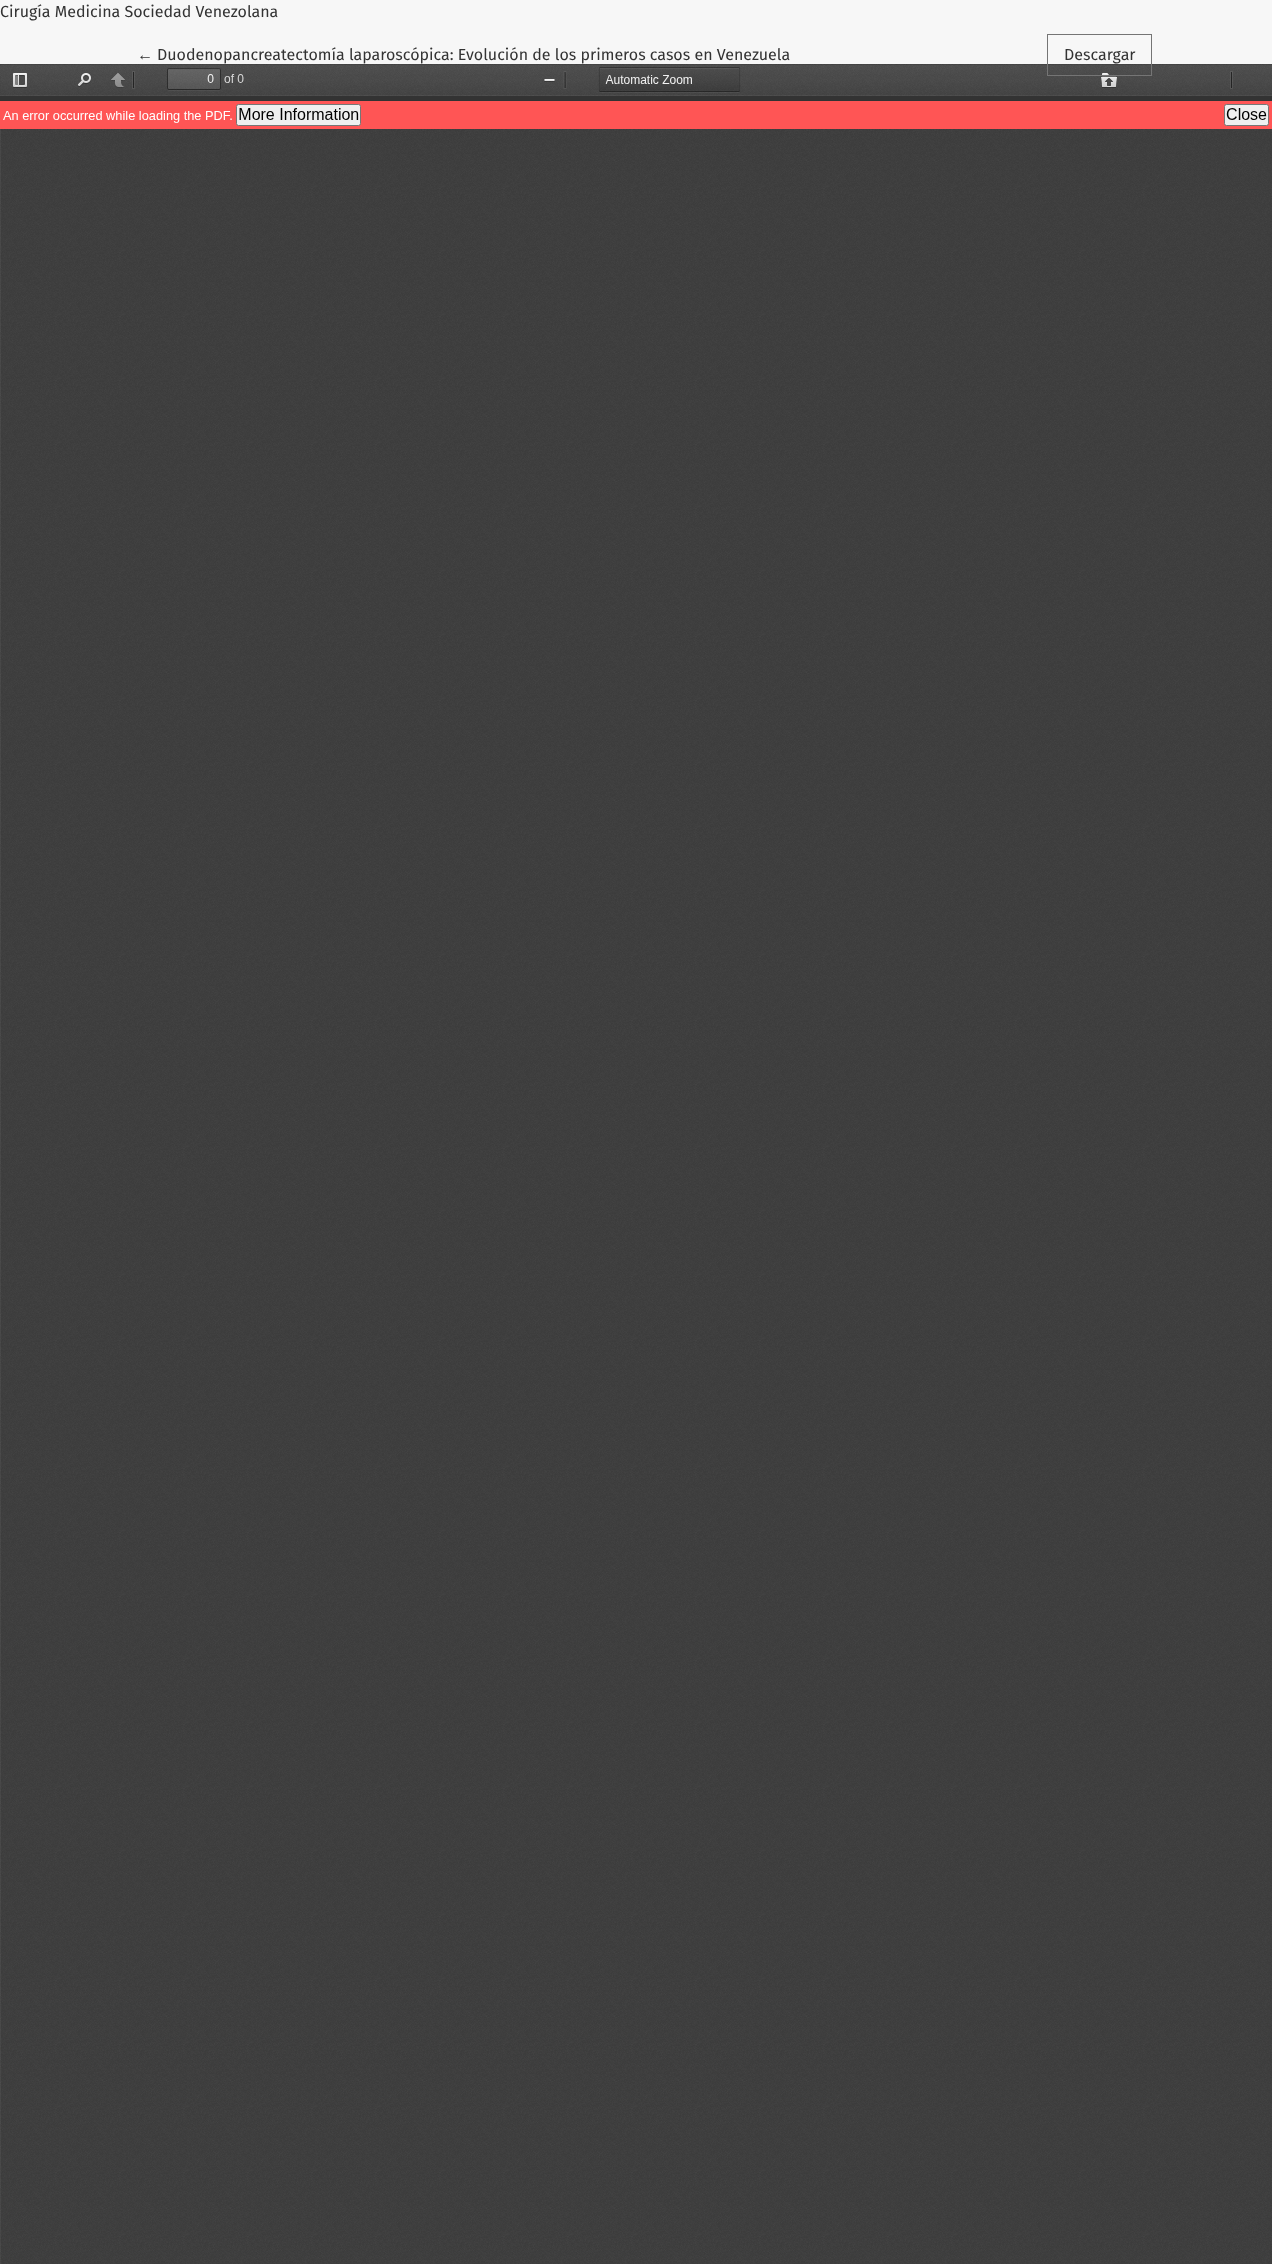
<svg xmlns="http://www.w3.org/2000/svg" width="1272" height="2264">
	<rect width="100%" height="100%" fill="#F7F7F7" />
	<text x="0" y="17" font-family="Fira Sans" font-size="16" fill="#333333">Cirugía Medicina Sociedad Venezolana</text>
	<text x="137" y="60" font-family="Liberation Sans" font-size="16" fill="#333333">←</text>
	<text x="157" y="60" font-family="Fira Sans" font-size="16" fill="#333333">Duodenopancreatectomía laparoscópica: Evolución de los primeros casos en Venezuela</text>
	<image x="0" y="64" width="1272" height="2200" href="assets/img1.png" />
	<rect x="1047.5" y="34.5" width="104" height="41" fill="none" stroke="#757575" />
	<text x="1064" y="60" font-family="Fira Sans" font-size="16" fill="#333333">Descargar</text>
</svg>
